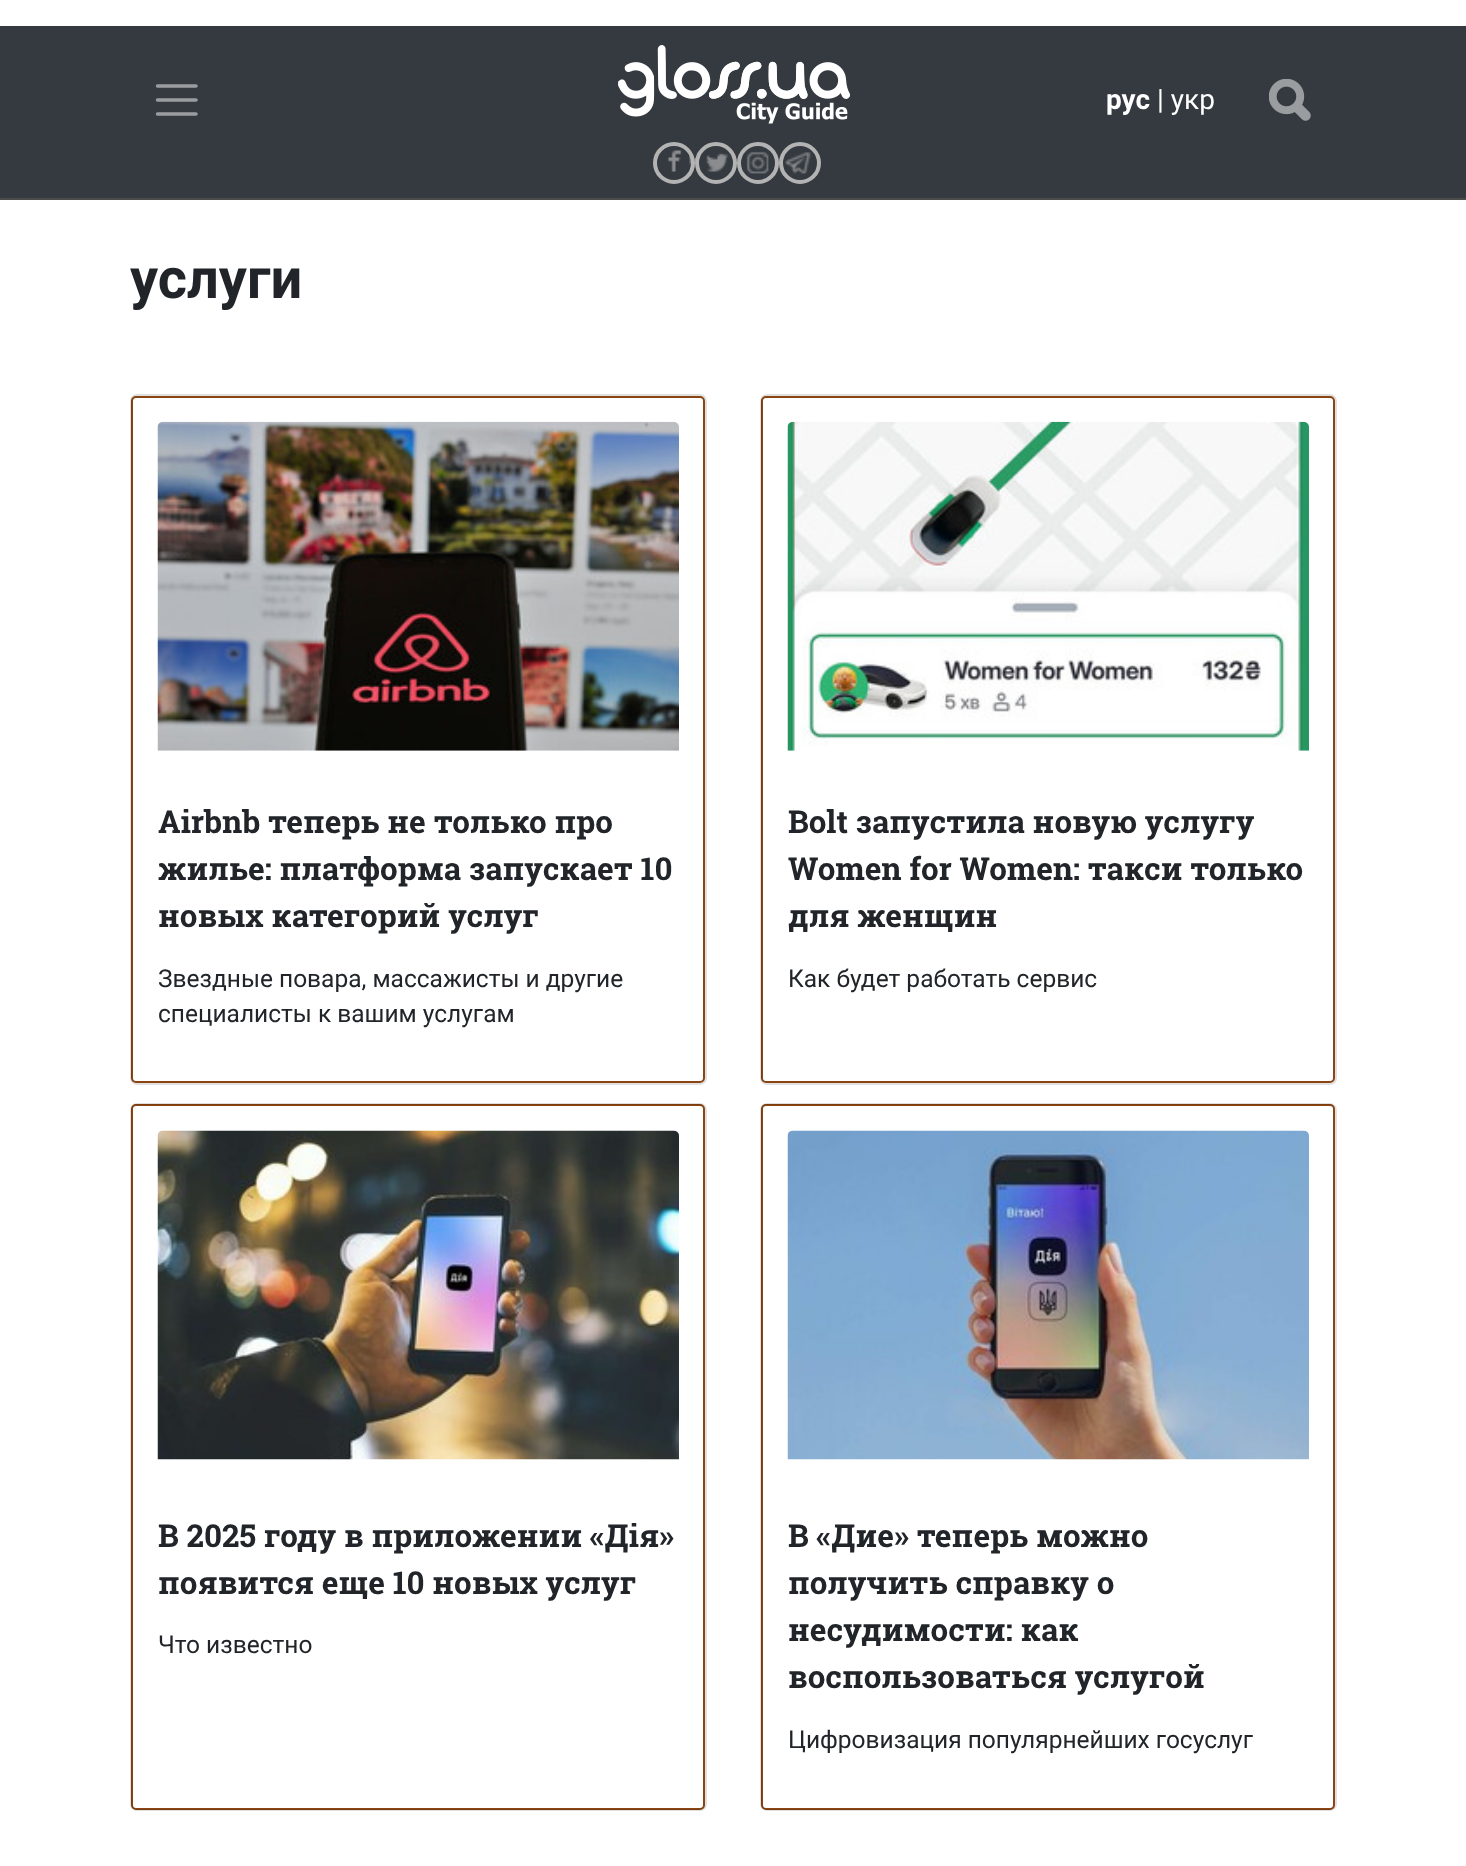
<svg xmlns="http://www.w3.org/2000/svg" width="1466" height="1866">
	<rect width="100%" height="100%" fill="#FFFFFF" />
	<rect x="0" y="26" width="1466" height="172" fill="#343A40" />
	<path d="M157.5 86H196M157.5 100H196M157.5 114H196" fill="none" stroke="#9A9DA0" stroke-width="3.5" stroke-linecap="round" />
	<image x="618" y="45" width="232" height="79" href="assets/img1.png" />
	<text x="1106" y="109" font-family="Roboto" font-size="28" font-weight="700" fill="#FFFFFF">рус</text>
	<text x="1157" y="109" font-family="Roboto" font-size="28" fill="#FFFFFF">| укр</text>
	<image x="1269" y="79" width="42" height="42" href="assets/img2.png" />
	<image x="654" y="147" width="41" height="25" href="assets/img3.png" />
	<circle cx="674" cy="163" r="19" fill="none" stroke="#B3B3B3" stroke-width="4" />
	<image x="695" y="151" width="34" height="21" href="assets/img4.png" />
	<circle cx="716" cy="163" r="19" fill="none" stroke="#B3B3B3" stroke-width="4" />
	<image x="746" y="151" width="23" height="23" href="assets/img5.png" />
	<circle cx="758" cy="163" r="19" fill="none" stroke="#B3B3B3" stroke-width="4" />
	<image x="785" y="152" width="26" height="22" href="assets/img6.png" />
	<circle cx="800" cy="163" r="19" fill="none" stroke="#B3B3B3" stroke-width="4" />
	<rect x="0" y="198" width="1466" height="2" fill="#4C4C4C" />
	<text x="130" y="298" font-family="Roboto" font-size="56" font-weight="700" fill="#212529">услуги</text>
	<rect x="132" y="397" width="572" height="685" rx="4" fill="none" stroke="#8B4513" stroke-width="2" />
	<rect x="131" y="395" width="575" height="689" rx="6" fill="none" stroke="#000000" stroke-opacity="0.12" stroke-width="2" />
	<image x="157" y="421" width="522" height="330" href="assets/img7.png" />
	<g font-family="Roboto Slab" font-size="31.5" font-weight="700" fill="#212529">
		<text x="158" y="833">Airbnb теперь не только про</text>
		<text x="158" y="880">жилье: платформа запускает 10</text>
		<text x="158" y="927">новых категорий услуг</text>
	</g>
	<g font-family="Roboto" font-size="24.5" fill="#212529">
		<text x="158" y="987">Звездные повара, массажисты и другие</text>
		<text x="158" y="1022">специалисты к вашим услугам</text>
	</g>
	<rect x="762" y="397" width="572" height="685" rx="4" fill="none" stroke="#8B4513" stroke-width="2" />
	<rect x="761" y="395" width="575" height="689" rx="6" fill="none" stroke="#000000" stroke-opacity="0.12" stroke-width="2" />
	<image x="787" y="421" width="522" height="330" href="assets/img8.png" />
	<g font-family="Roboto Slab" font-size="31.5" font-weight="700" fill="#212529">
		<text x="788" y="833">Bolt запустила новую услугу</text>
		<text x="788" y="880">Women for Women: такси только</text>
		<text x="788" y="927">для женщин</text>
	</g>
	<text x="788" y="987" font-family="Roboto" font-size="24.5" fill="#212529">Как будет работать сервис</text>
	<rect x="132" y="1105" width="572" height="704" rx="4" fill="none" stroke="#8B4513" stroke-width="2" />
	<rect x="131" y="1104" width="575" height="706" rx="6" fill="none" stroke="#000000" stroke-opacity="0.12" stroke-width="2" />
	<image x="157" y="1130" width="522" height="330" href="assets/img9.png" />
	<g font-family="Roboto Slab" font-size="31.5" font-weight="700" fill="#212529">
		<text x="158" y="1547">В 2025 году в приложении «Дія»</text>
		<text x="158" y="1594">появится еще 10 новых услуг</text>
	</g>
	<text x="158" y="1653" font-family="Roboto" font-size="24.5" fill="#212529">Что известно</text>
	<rect x="762" y="1105" width="572" height="704" rx="4" fill="none" stroke="#8B4513" stroke-width="2" />
	<rect x="761" y="1104" width="575" height="706" rx="6" fill="none" stroke="#000000" stroke-opacity="0.12" stroke-width="2" />
	<image x="787" y="1130" width="522" height="330" href="assets/img10.png" />
	<g font-family="Roboto Slab" font-size="31.5" font-weight="700" fill="#212529">
		<text x="788" y="1547">В «Дие» теперь можно</text>
		<text x="788" y="1594">получить справку о</text>
		<text x="788" y="1641">несудимости: как</text>
		<text x="788" y="1688">воспользоваться услугой</text>
	</g>
	<text x="788" y="1748" font-family="Roboto" font-size="24.5" fill="#212529">Цифровизация популярнейших госуслуг</text>
</svg>
